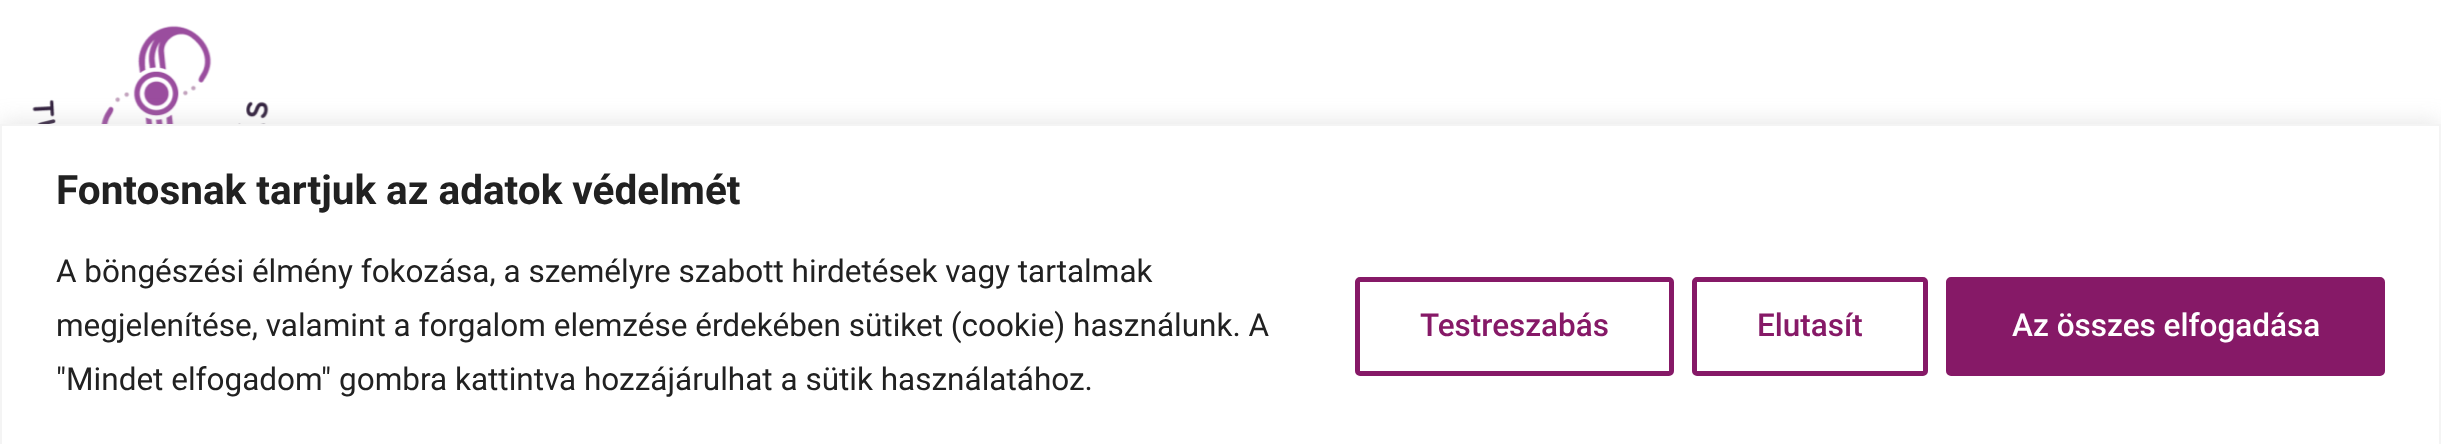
<svg xmlns="http://www.w3.org/2000/svg" width="2441" height="444">
	<rect width="100%" height="100%" fill="#FFFFFF" />
	<image x="32" y="25" width="237" height="99" href="assets/img1.png" />
	<rect x="0" y="122" width="2441" height="321" fill="#ACABAB" fill-opacity="0.3" filter="blur(11px)" />
	<rect x="1" y="125" width="2439" height="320" fill="#FFFFFF" stroke="#F4F4F4" stroke-width="2" />
	<text x="56" y="204" font-family="Roboto" font-size="40.5" font-weight="700" fill="#212121">Fontosnak tartjuk az adatok védelmét</text>
	<g font-family="Roboto" font-size="31.5" fill="#212121">
		<text x="56" y="282">A böngészési élmény fokozása, a személyre szabott hirdetések vagy tartalmak</text>
		<text x="56" y="336">megjelenítése, valamint a forgalom elemzése érdekében sütiket (cookie) használunk. A</text>
		<text x="56" y="390">"Mindet elfogadom" gombra kattintva hozzájárulhat a sütik használatához.</text>
	</g>
	<rect x="1357.5" y="279.5" width="314" height="94" rx="2.5" fill="none" stroke="#861967" stroke-width="5" />
	<text x="1420" y="336" font-family="Roboto" font-size="31.5" font-weight="500" fill="#861967">Testreszabás</text>
	<rect x="1694.5" y="279.5" width="231" height="94" rx="2.5" fill="none" stroke="#861967" stroke-width="5" />
	<text x="1757" y="336" font-family="Roboto" font-size="31.5" font-weight="500" fill="#861967">Elutasít</text>
	<rect x="1948.5" y="279.5" width="434" height="94" rx="2.5" fill="#861967" stroke="#861967" stroke-width="5" />
	<text x="2012" y="336" font-family="Roboto" font-size="31.5" font-weight="500" fill="#FFFFFF">Az összes elfogadása</text>
</svg>
